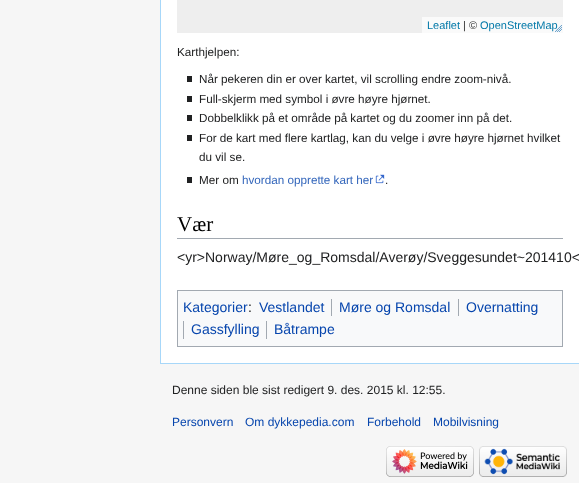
<svg xmlns="http://www.w3.org/2000/svg" width="579" height="483">
	<rect width="100%" height="100%" fill="#F6F6F6" />
	<rect x="161" y="0" width="418" height="363" fill="#FFFFFF" />
	<rect x="160" y="363" width="419" height="1" fill="#A7D7F9" />
	<rect x="160" y="0" width="1" height="364" fill="#A7D7F9" />
	<rect x="177" y="0" width="386" height="33" fill="#EEEEEE" />
	<rect x="422" y="17" width="141" height="16" fill="#FAFAFA" />
	<text x="427" y="29" font-family="Liberation Sans" font-size="11" fill="#0078A8">Leaflet</text>
	<text x="463" y="29" font-family="Liberation Sans" font-size="11" fill="#333333">| ©</text>
	<text x="480" y="29" font-family="Liberation Sans" font-size="11" fill="#0078A8">OpenStreetMap</text>
	<image x="555" y="25" width="7" height="7" href="assets/img1.png" />
	<text x="177" y="56" font-family="Liberation Sans" font-size="11.7" fill="#202122">Karthjelpen:</text>
	<rect x="187" y="76" width="5" height="6" fill="#202122" />
	<text x="199" y="83" font-family="Liberation Sans" font-size="11.7" fill="#202122">Når pekeren din er over kartet, vil scrolling endre zoom-nivå.</text>
	<rect x="187" y="96" width="5" height="6" fill="#202122" />
	<text x="199" y="103" font-family="Liberation Sans" font-size="11.7" fill="#202122">Full-skjerm med symbol i øvre høyre hjørnet.</text>
	<rect x="187" y="115" width="5" height="6" fill="#202122" />
	<text x="199" y="122" font-family="Liberation Sans" font-size="11.7" fill="#202122">Dobbelklikk på et område på kartet og du zoomer inn på det.</text>
	<rect x="187" y="135" width="5" height="6" fill="#202122" />
	<g font-family="Liberation Sans" font-size="11.7" fill="#202122">
		<text x="199" y="142">For de kart med flere kartlag, kan du velge i øvre høyre hjørnet hvilket</text>
		<text x="199" y="161">du vil se.</text>
	</g>
	<rect x="187" y="177" width="5" height="6" fill="#202122" />
	<text x="199" y="184" font-family="Liberation Sans" font-size="11.7" fill="#202122">Mer om</text>
	<text x="242" y="184" font-family="Liberation Sans" font-size="11.7" fill="#3366BB">hvordan opprette kart her</text>
	<image x="375" y="174" width="10" height="10" href="assets/img2.png" />
	<text x="385" y="184" font-family="Liberation Sans" font-size="11.7" fill="#202122">.</text>
	<rect x="177" y="238" width="386" height="1" fill="#A2A9B1" />
	<text x="177" y="231" font-family="Liberation Serif" font-size="21" fill="#000000">Vær</text>
	<text x="177" y="262" font-family="Liberation Sans" font-size="14" fill="#202122">&lt;yr&gt;Norway/Møre_og_Romsdal/Averøy/Sveggesundet~201410&lt;</text>
	<rect x="177.5" y="290.5" width="385" height="56" fill="#F8F9FA" stroke="#A2A9B1" />
	<g font-family="Liberation Sans" font-size="14" fill="#0645AD">
		<text x="183" y="312">Kategorier</text>
		<text x="259" y="312">Vestlandet</text>
	</g>
	<rect x="331" y="299" width="1" height="17" fill="#A2A9B1" />
	<text x="339" y="312" font-family="Liberation Sans" font-size="14" fill="#0645AD">Møre og Romsdal</text>
	<rect x="458" y="299" width="1" height="17" fill="#A2A9B1" />
	<text x="466" y="312" font-family="Liberation Sans" font-size="14" fill="#0645AD">Overnatting</text>
	<rect x="183" y="321" width="1" height="18" fill="#A2A9B1" />
	<text x="191" y="334" font-family="Liberation Sans" font-size="14" fill="#0645AD">Gassfylling</text>
	<rect x="266" y="321" width="1" height="18" fill="#A2A9B1" />
	<text x="274" y="334" font-family="Liberation Sans" font-size="14" fill="#0645AD">Båtrampe</text>
	<text x="248" y="312" font-family="Liberation Sans" font-size="14" fill="#202122">:</text>
	<text x="172" y="394" font-family="Liberation Sans" font-size="12" fill="#202122">Denne siden ble sist redigert 9. des. 2015 kl. 12:55.</text>
	<g font-family="Liberation Sans" font-size="12" fill="#0645AD">
		<text x="172" y="426">Personvern</text>
		<text x="245" y="426">Om dykkepedia.com</text>
		<text x="367" y="426">Forbehold</text>
		<text x="433" y="426">Mobilvisning</text>
	</g>
	<image x="386" y="446" width="88" height="31" href="assets/img3.png" />
	<image x="479" y="446" width="88" height="31" href="assets/img4.png" />
</svg>
